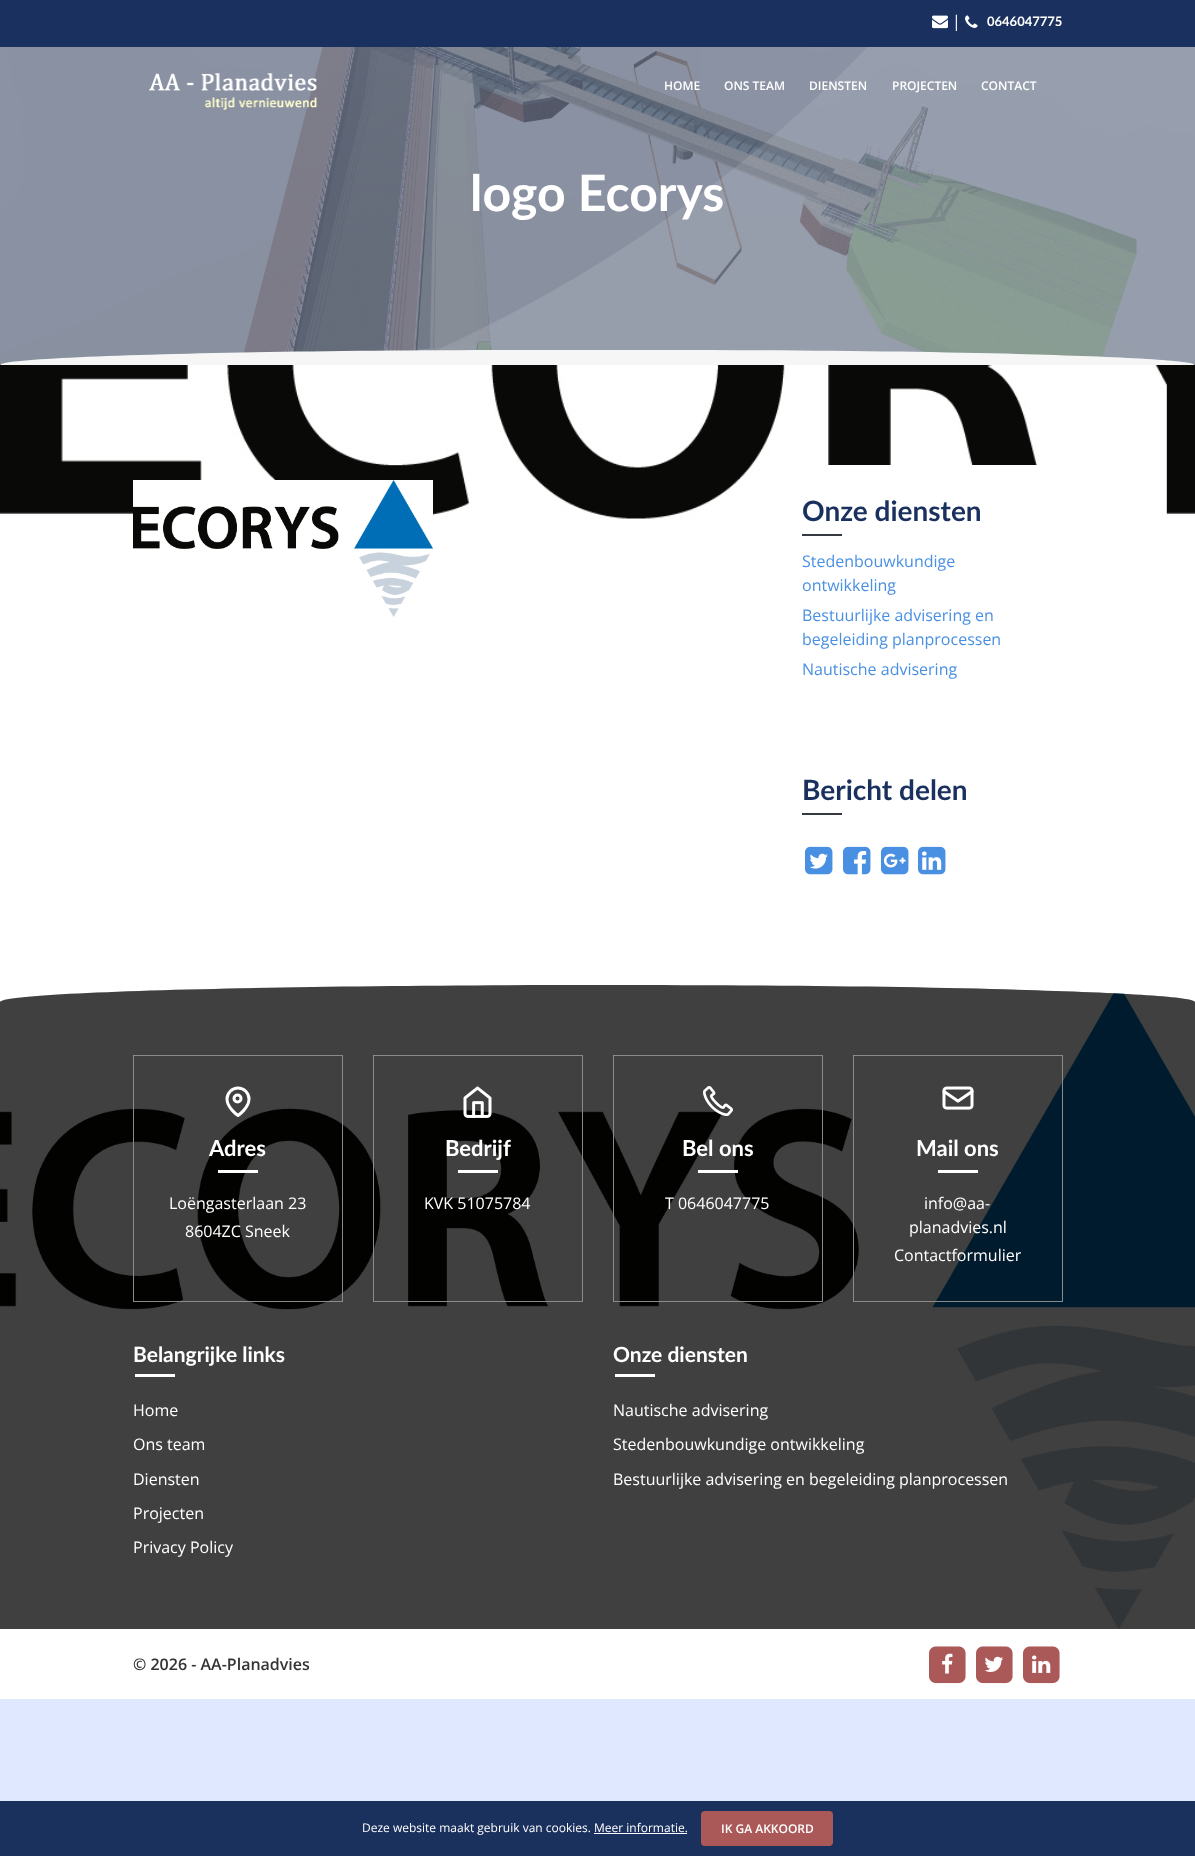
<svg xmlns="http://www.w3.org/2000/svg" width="1195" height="1856">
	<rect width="100%" height="100%" fill="#DFE8FF" />
	<image x="0" y="47" width="1195" height="317" href="assets/img5.png" />
	<path d="M406 364C709 232 938 22 1095-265C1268-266 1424-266 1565-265V364Z" fill="#FFFFFF" fill-opacity="0.11" />
	<rect x="0" y="0" width="1195" height="47" fill="#1A305E" />
	<image x="932" y="15" width="16" height="14" href="assets/img1.png" />
	<text x="952" y="27" font-family="Open Sans" font-size="16" fill="#FFFFFF">|</text>
	<image x="965" y="15" width="13" height="13" href="assets/img2.png" />
	<text x="987" y="26" font-family="Lato" font-size="13" font-weight="700" fill="#FFFFFF">0646047775</text>
	<image x="149" y="73" width="168" height="37" href="assets/img3.png" />
	<g font-family="Open Sans" font-size="12" font-weight="600" fill="#FFFFFF">
		<text x="664" y="90">HOME</text>
		<text x="724" y="90">ONS TEAM</text>
		<text x="809" y="90">DIENSTEN</text>
		<text x="892" y="90">PROJECTEN</text>
		<text x="981" y="90">CONTACT</text>
	</g>
	<image x="0" y="364" width="1195" height="638" href="assets/img4.png" />
	<text x="470" y="211" font-family="Lato" font-size="50" font-weight="700" fill="#FFFFFF">logo Ecorys</text>
	<path d="M538 350H657C954 350 1195 357 1195 365H0C0 357 241 350 538 350Z" fill="#F6F6F6" />
	<image x="133" y="480" width="300" height="137" href="assets/img6.png" />
	<rect x="828" y="465" width="226" height="53" fill="#FFFFFF" />
	<text x="802" y="521" font-family="Lato" font-size="28" font-weight="700" fill="#1A305E">Onze diensten</text>
	<rect x="802" y="534" width="40" height="2" fill="#343A40" />
	<g font-family="Open Sans" font-size="16" fill="#4A90E2">
		<text x="802" y="567">Stedenbouwkundige</text>
		<text x="802" y="591">ontwikkeling</text>
		<text x="802" y="621">Bestuurlijke advisering en</text>
		<text x="802" y="645">begeleiding planprocessen</text>
		<text x="802" y="675">Nautische advisering</text>
	</g>
	<text x="802" y="800" font-family="Lato" font-size="28" font-weight="700" fill="#1A305E">Bericht delen</text>
	<rect x="802" y="813" width="40" height="2" fill="#343A40" />
	<image x="805" y="846" width="28" height="29" href="assets/img7.png" />
	<image x="843" y="846" width="28" height="29" href="assets/img8.png" />
	<image x="881" y="846" width="28" height="29" href="assets/img9.png" />
	<image x="918" y="846" width="28" height="29" href="assets/img10.png" />
	<path d="M598 985C927 985 1195 992 1195 1002V1629H0V1002C0 992 268 985 598 985Z" fill="#DADADA" />
	<image x="0" y="985" width="1195" height="644" href="assets/img11.png" />
	<path d="M598 985C927 985 1195 992 1195 1002V1629H0V1002C0 992 268 985 598 985Z" fill="#000000" fill-opacity="0.75" />
	<rect x="133.5" y="1055.5" width="209" height="246" fill="none" stroke="#8B8B8B" />
	<path d="M249 1099C249 1108 238 1115.5 238 1115.5C238 1115.5 227 1108 227 1099C227 1093 232 1088 238 1088C244 1088 249 1093 249 1099Z" fill="none" stroke="#FFFFFF" stroke-width="3" stroke-linecap="round" stroke-linejoin="round" />
	<circle cx="237.5" cy="1098.5" r="3.5" fill="none" stroke="#FFFFFF" stroke-width="3" />
	<text x="209" y="1156" font-family="Lato" font-size="22" font-weight="700" fill="#FFFFFF">Adres</text>
	<rect x="218" y="1170" width="40" height="3" fill="#FFFFFF" />
	<g font-family="Open Sans" font-size="16" fill="#FFFFFF">
		<text x="169" y="1209">Loëngasterlaan 23</text>
		<text x="185" y="1237">8604ZC Sneek</text>
	</g>
	<rect x="373.5" y="1055.5" width="209" height="246" fill="none" stroke="#8B8B8B" />
	<image x="463" y="1086" width="29" height="32" href="assets/img12.png" />
	<text x="445" y="1156" font-family="Lato" font-size="22" font-weight="700" fill="#FFFFFF">Bedrijf</text>
	<rect x="458" y="1170" width="40" height="3" fill="#FFFFFF" />
	<text x="424" y="1209" font-family="Open Sans" font-size="16" fill="#FFFFFF">KVK 51075784</text>
	<rect x="613.5" y="1055.5" width="209" height="246" fill="none" stroke="#8B8B8B" />
	<image x="703" y="1086" width="30" height="30" href="assets/img13.png" />
	<text x="682" y="1156" font-family="Lato" font-size="22" font-weight="700" fill="#FFFFFF">Bel ons</text>
	<rect x="698" y="1170" width="40" height="3" fill="#FFFFFF" />
	<text x="665" y="1209" font-family="Open Sans" font-size="16" fill="#FFFFFF">T 0646047775</text>
	<rect x="853.5" y="1055.5" width="209" height="246" fill="none" stroke="#8B8B8B" />
	<image x="942" y="1086" width="32" height="24" href="assets/img14.png" />
	<text x="916" y="1156" font-family="Lato" font-size="22" font-weight="700" fill="#FFFFFF">Mail ons</text>
	<rect x="938" y="1170" width="40" height="3" fill="#FFFFFF" />
	<g font-family="Open Sans" font-size="16" fill="#FFFFFF">
		<text x="924" y="1209">info@aa-</text>
		<text x="909" y="1233">planadvies.nl</text>
		<text x="894" y="1261">Contactformulier</text>
	</g>
	<text x="133" y="1362" font-family="Lato" font-size="21" font-weight="700" fill="#FFFFFF">Belangrijke links</text>
	<rect x="135" y="1374" width="40" height="3" fill="#FFFFFF" />
	<g font-family="Open Sans" font-size="16" fill="#FFFFFF">
		<text x="133" y="1416">Home</text>
		<text x="133" y="1450">Ons team</text>
		<text x="133" y="1485">Diensten</text>
		<text x="133" y="1519">Projecten</text>
		<text x="133" y="1553">Privacy Policy</text>
	</g>
	<text x="613" y="1362" font-family="Lato" font-size="21" font-weight="700" fill="#FFFFFF">Onze diensten</text>
	<rect x="615" y="1374" width="40" height="3" fill="#FFFFFF" />
	<g font-family="Open Sans" font-size="16" fill="#FFFFFF">
		<text x="613" y="1416">Nautische advisering</text>
		<text x="613" y="1450">Stedenbouwkundige ontwikkeling</text>
		<text x="613" y="1485">Bestuurlijke advisering en begeleiding planprocessen</text>
	</g>
	<rect x="0" y="1629" width="1195" height="70" fill="#FFFFFF" />
	<text x="133" y="1670" font-family="Open Sans" font-size="16" font-weight="600" fill="#333333">© 2026 - AA-Planadvies</text>
	<image x="929" y="1646" width="37" height="38" href="assets/img15.png" />
	<image x="942" y="1653" width="11" height="21" href="assets/img16.png" />
	<image x="976" y="1646" width="37" height="38" href="assets/img15.png" />
	<image x="984" y="1656" width="20" height="16" href="assets/img17.png" />
	<image x="1023" y="1646" width="37" height="38" href="assets/img15.png" />
	<image x="1032" y="1655" width="19" height="18" href="assets/img18.png" />
	<rect x="0" y="1801" width="1195" height="55" fill="#1A305D" />
	<text x="362" y="1832" font-family="Open Sans" font-size="12" fill="#FFFFFF">Deze website maakt gebruik van cookies. Meer informatie.</text>
	<rect x="701" y="1811" width="132" height="35" rx="4" fill="#AB5958" />
	<text x="721" y="1833" font-family="Open Sans" font-size="12" font-weight="600" fill="#FFFFFF">IK GA AKKOORD</text>
	<rect x="594" y="1833" width="93" height="1" fill="#FFFFFF" />
</svg>
